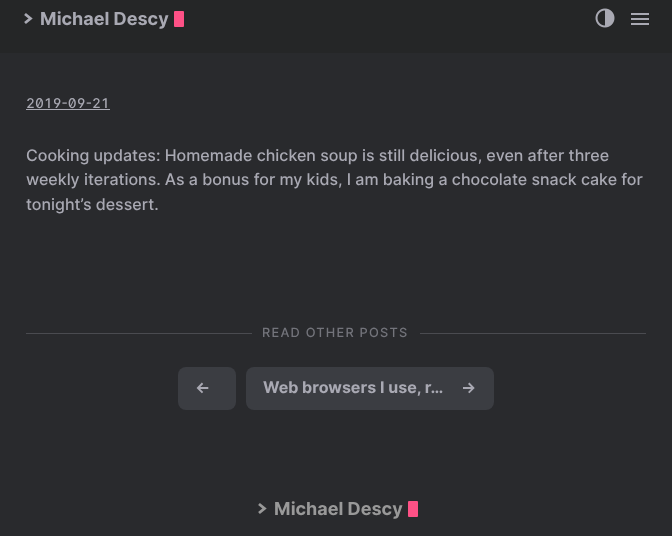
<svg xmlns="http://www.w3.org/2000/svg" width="672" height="536">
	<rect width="100%" height="100%" fill="#292A2D" />
	<rect x="0" y="0" width="672" height="53" fill="#252627" />
	<path d="M25 14L30.5 18.5L25 23" fill="none" stroke="#A9A9B3" stroke-width="2.8" />
	<text x="40" y="25" font-family="Inter" font-size="18" font-weight="700" fill="#A9A9B3">Michael Descy</text>
	<rect x="174" y="11" width="10" height="16" rx="1" fill="#FE5186" />
	<image x="595" y="8" width="20" height="20" href="assets/img1.png" />
	<image x="631" y="13" width="18" height="12" href="assets/img2.png" />
	<text x="26" y="108" font-family="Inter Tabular" font-size="13.5" font-weight="500" fill="#A9A9B3">2019-09-21</text>
	<rect x="26" y="109" width="84" height="1" fill="#A9A9B3" />
	<g font-family="Inter" font-size="16" font-weight="500" fill="#A9A9B3">
		<text x="26" y="161">Cooking updates: Homemade chicken soup is still delicious, even after three</text>
		<text x="26" y="185">weekly iterations. As a bonus for my kids, I am baking a chocolate snack cake for</text>
		<text x="26" y="210">tonight’s dessert.</text>
	</g>
	<rect x="26" y="333" width="620" height="1" fill="#4A4B50" />
	<rect x="252" y="333" width="168" height="1" fill="#292A2D" />
	<text x="262" y="337" font-family="Inter" font-size="12.75" font-weight="500" letter-spacing="1.25" fill="#73747B">READ OTHER POSTS</text>
	<rect x="178" y="367" width="58" height="43" rx="8" fill="#3B3D42" />
	<text x="195" y="393" font-family="Inter" font-size="16" font-weight="700" fill="#A9A9B3">←</text>
	<rect x="246" y="367" width="248" height="43" rx="8" fill="#3B3D42" />
	<g font-family="Inter" font-size="16" font-weight="700" fill="#A9A9B3">
		<text x="263" y="393">Web browsers I use, r…</text>
		<text x="461" y="393">→</text>
	</g>
	<path d="M259 504L264.5 508.5L259 513" fill="none" stroke="#999999" stroke-width="2.8" />
	<text x="274" y="515" font-family="Inter" font-size="18" font-weight="700" fill="#999999">Michael Descy</text>
	<rect x="408" y="501" width="10" height="16" rx="1" fill="#FE5186" />
</svg>
